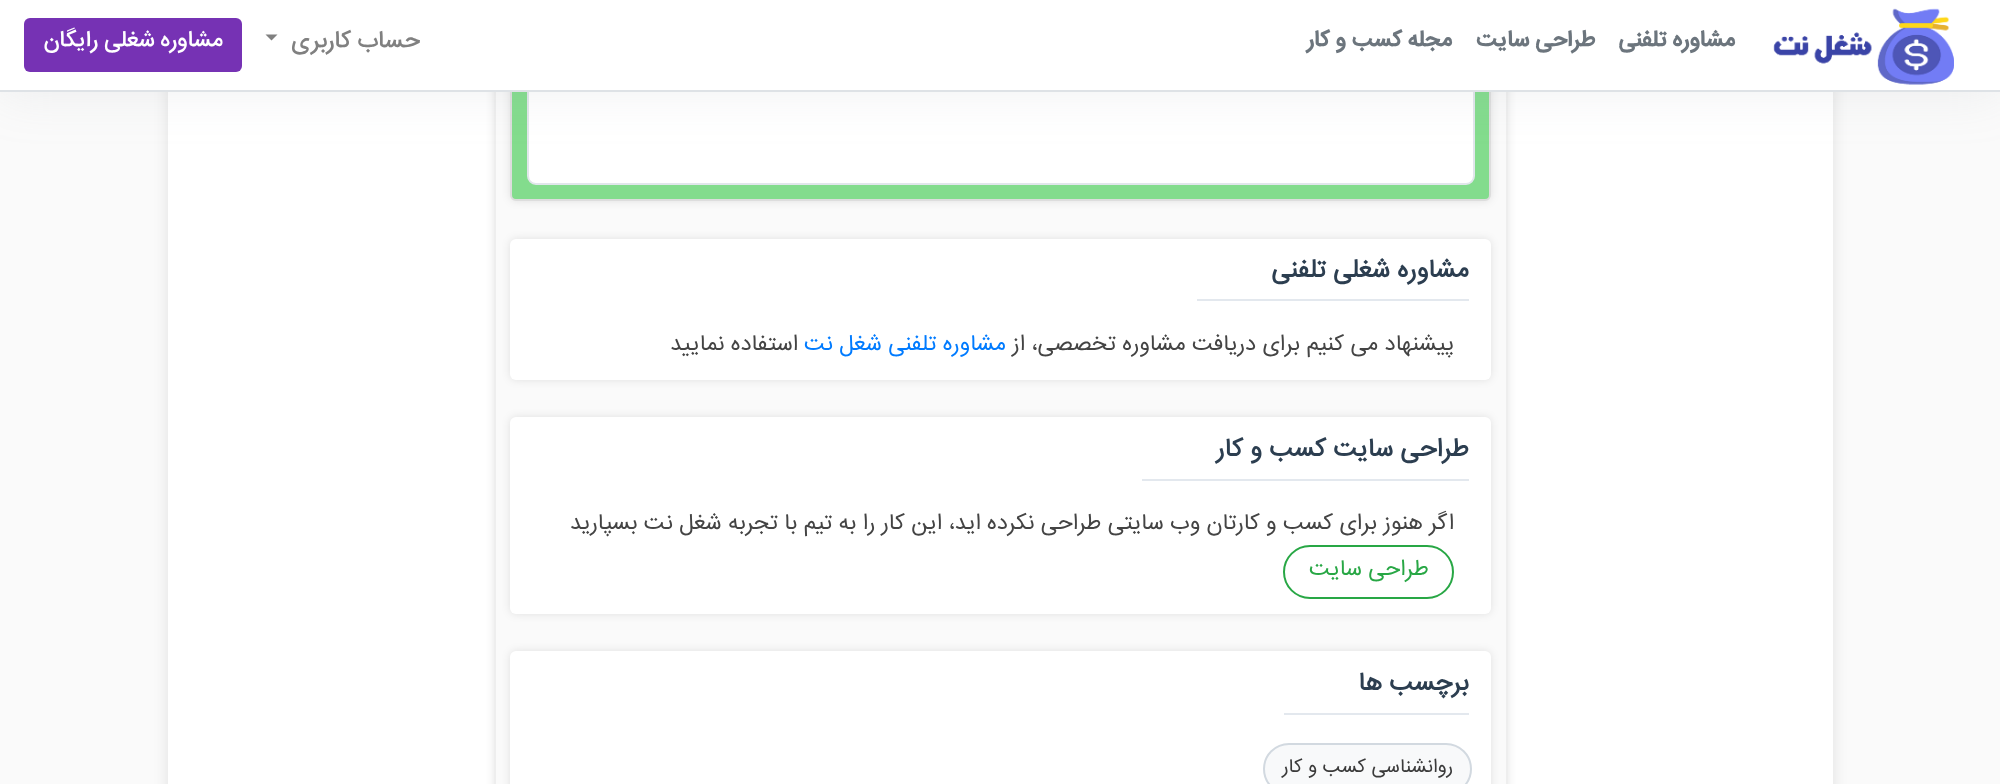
<svg xmlns="http://www.w3.org/2000/svg" width="2000" height="784">
	<rect width="100%" height="100%" fill="#FAFAFA" />
	<rect x="168" y="-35" width="1665" height="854" rx="12" fill="#000000" fill-opacity="0.1" filter="blur(7.5px)" />
	<rect x="168" y="92" width="1665" height="692" fill="#FFFFFF" />
	<rect x="494" y="-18" width="1014" height="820" rx="6" fill="#000000" fill-opacity="0.1" filter="blur(4px)" />
	<rect x="496" y="92" width="1010" height="692" fill="#FAFAFA" />
	<rect x="495" y="-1" width="1012" height="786" fill="none" stroke="#EEEEEE" stroke-width="2" />
	<rect x="510" y="-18" width="981" height="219" rx="6" fill="#000000" fill-opacity="0.1" filter="blur(4px)" />
	<rect x="511" y="-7" width="979" height="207" rx="5" fill="#83DC8D" stroke="#DDDDDD" stroke-width="2" />
	<rect x="528" y="-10" width="946" height="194" rx="8" fill="#FFFFFF" stroke="#E1E6EB" stroke-width="2" />
	<rect x="0" y="0" width="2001" height="92" fill="#9AA1AB" fill-opacity="0.15" filter="blur(26px)" />
	<rect x="0" y="0" width="2000" height="90" fill="#FFFFFF" />
	<rect x="0" y="90" width="2000" height="2" fill="#DEE2E6" />
	<image x="1773" y="8" width="181" height="77" href="assets/img1.png" />
	<g font-family="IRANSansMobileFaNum" font-size="22.5" font-weight="700" direction="rtl" fill="#6C757D">
		<text x="1735" y="46">مشاوره تلفنی</text>
		<text x="1595" y="46">طراحی سایت</text>
		<text x="1452" y="46">مجله کسب و کار</text>
	</g>
	<text x="420" y="47" font-family="IRANSansMobileFaNum" font-size="24" font-weight="500" direction="rtl" fill="#808080">حساب کاربری</text>
	<path d="M265.5 34.5H277.5L271.5 40.5Z" fill="#808080" />
	<rect x="24" y="18" width="218" height="54" rx="6" fill="#7632B4" />
	<text x="223" y="46" font-family="IRANSansMobileFaNum" font-size="22.5" font-weight="500" direction="rtl" fill="#FFFFFF">مشاوره شغلی رایگان</text>
	<rect x="510" y="239" width="981" height="141" rx="6" fill="#000000" fill-opacity="0.1" filter="blur(4px)" />
	<rect x="510" y="239" width="981" height="141" rx="6" fill="#FFFFFF" />
	<text x="1469" y="277" font-family="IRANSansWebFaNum" font-size="25.5" font-weight="700" direction="rtl" fill="#2C3E50">مشاوره شغلی تلفنی</text>
	<rect x="1197" y="299" width="272" height="2" fill="#E3E8EE" />
	<text x="1454" y="350" font-family="IRANSansWebFaNum" font-size="22.5" direction="rtl" fill="#444444">پیشنهاد می کنیم برای دریافت مشاوره تخصصی، از</text>
	<text x="1006" y="350" font-family="IRANSansWebFaNum" font-size="22.5" direction="rtl" fill="#007BFF">مشاوره تلفنی شغل نت</text>
	<text x="798" y="350" font-family="IRANSansWebFaNum" font-size="22.5" direction="rtl" fill="#444444">استفاده نمایید</text>
	<rect x="510" y="417" width="981" height="197" rx="6" fill="#000000" fill-opacity="0.1" filter="blur(4px)" />
	<rect x="510" y="417" width="981" height="197" rx="6" fill="#FFFFFF" />
	<text x="1469" y="456" font-family="IRANSansWebFaNum" font-size="25.5" font-weight="700" direction="rtl" fill="#2C3E50">طراحی سایت کسب و کار</text>
	<rect x="1142" y="479" width="327" height="2" fill="#E3E8EE" />
	<text x="1454" y="529" font-family="IRANSansWebFaNum" font-size="22.5" direction="rtl" fill="#444444">اگر هنوز برای کسب و کارتان وب سایتی طراحی نکرده اید، این کار را به تیم با تجربه شغل نت بسپارید</text>
	<rect x="1284" y="546" width="169" height="52" rx="26" fill="none" stroke="#28A745" stroke-width="2" />
	<text x="1429" y="575" font-family="IRANSansWebFaNum" font-size="22.5" direction="rtl" fill="#28A745">طراحی سایت</text>
	<rect x="510" y="651" width="981" height="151" rx="6" fill="#000000" fill-opacity="0.1" filter="blur(4px)" />
	<rect x="510" y="651" width="981" height="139" rx="6" fill="#FFFFFF" />
	<text x="1469" y="690" font-family="IRANSansWebFaNum" font-size="25.5" font-weight="700" direction="rtl" fill="#2C3E50">برچسب ها</text>
	<rect x="1284" y="713" width="185" height="2" fill="#E3E8EE" />
	<rect x="1264" y="744" width="207" height="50" rx="25" fill="#F8F9FA" stroke="#D2D9E0" stroke-width="2" />
	<text x="1453" y="772" font-family="IRANSansWebFaNum" font-size="19.5" direction="rtl" fill="#3B3B3B">روانشناسی کسب و کار</text>
</svg>
